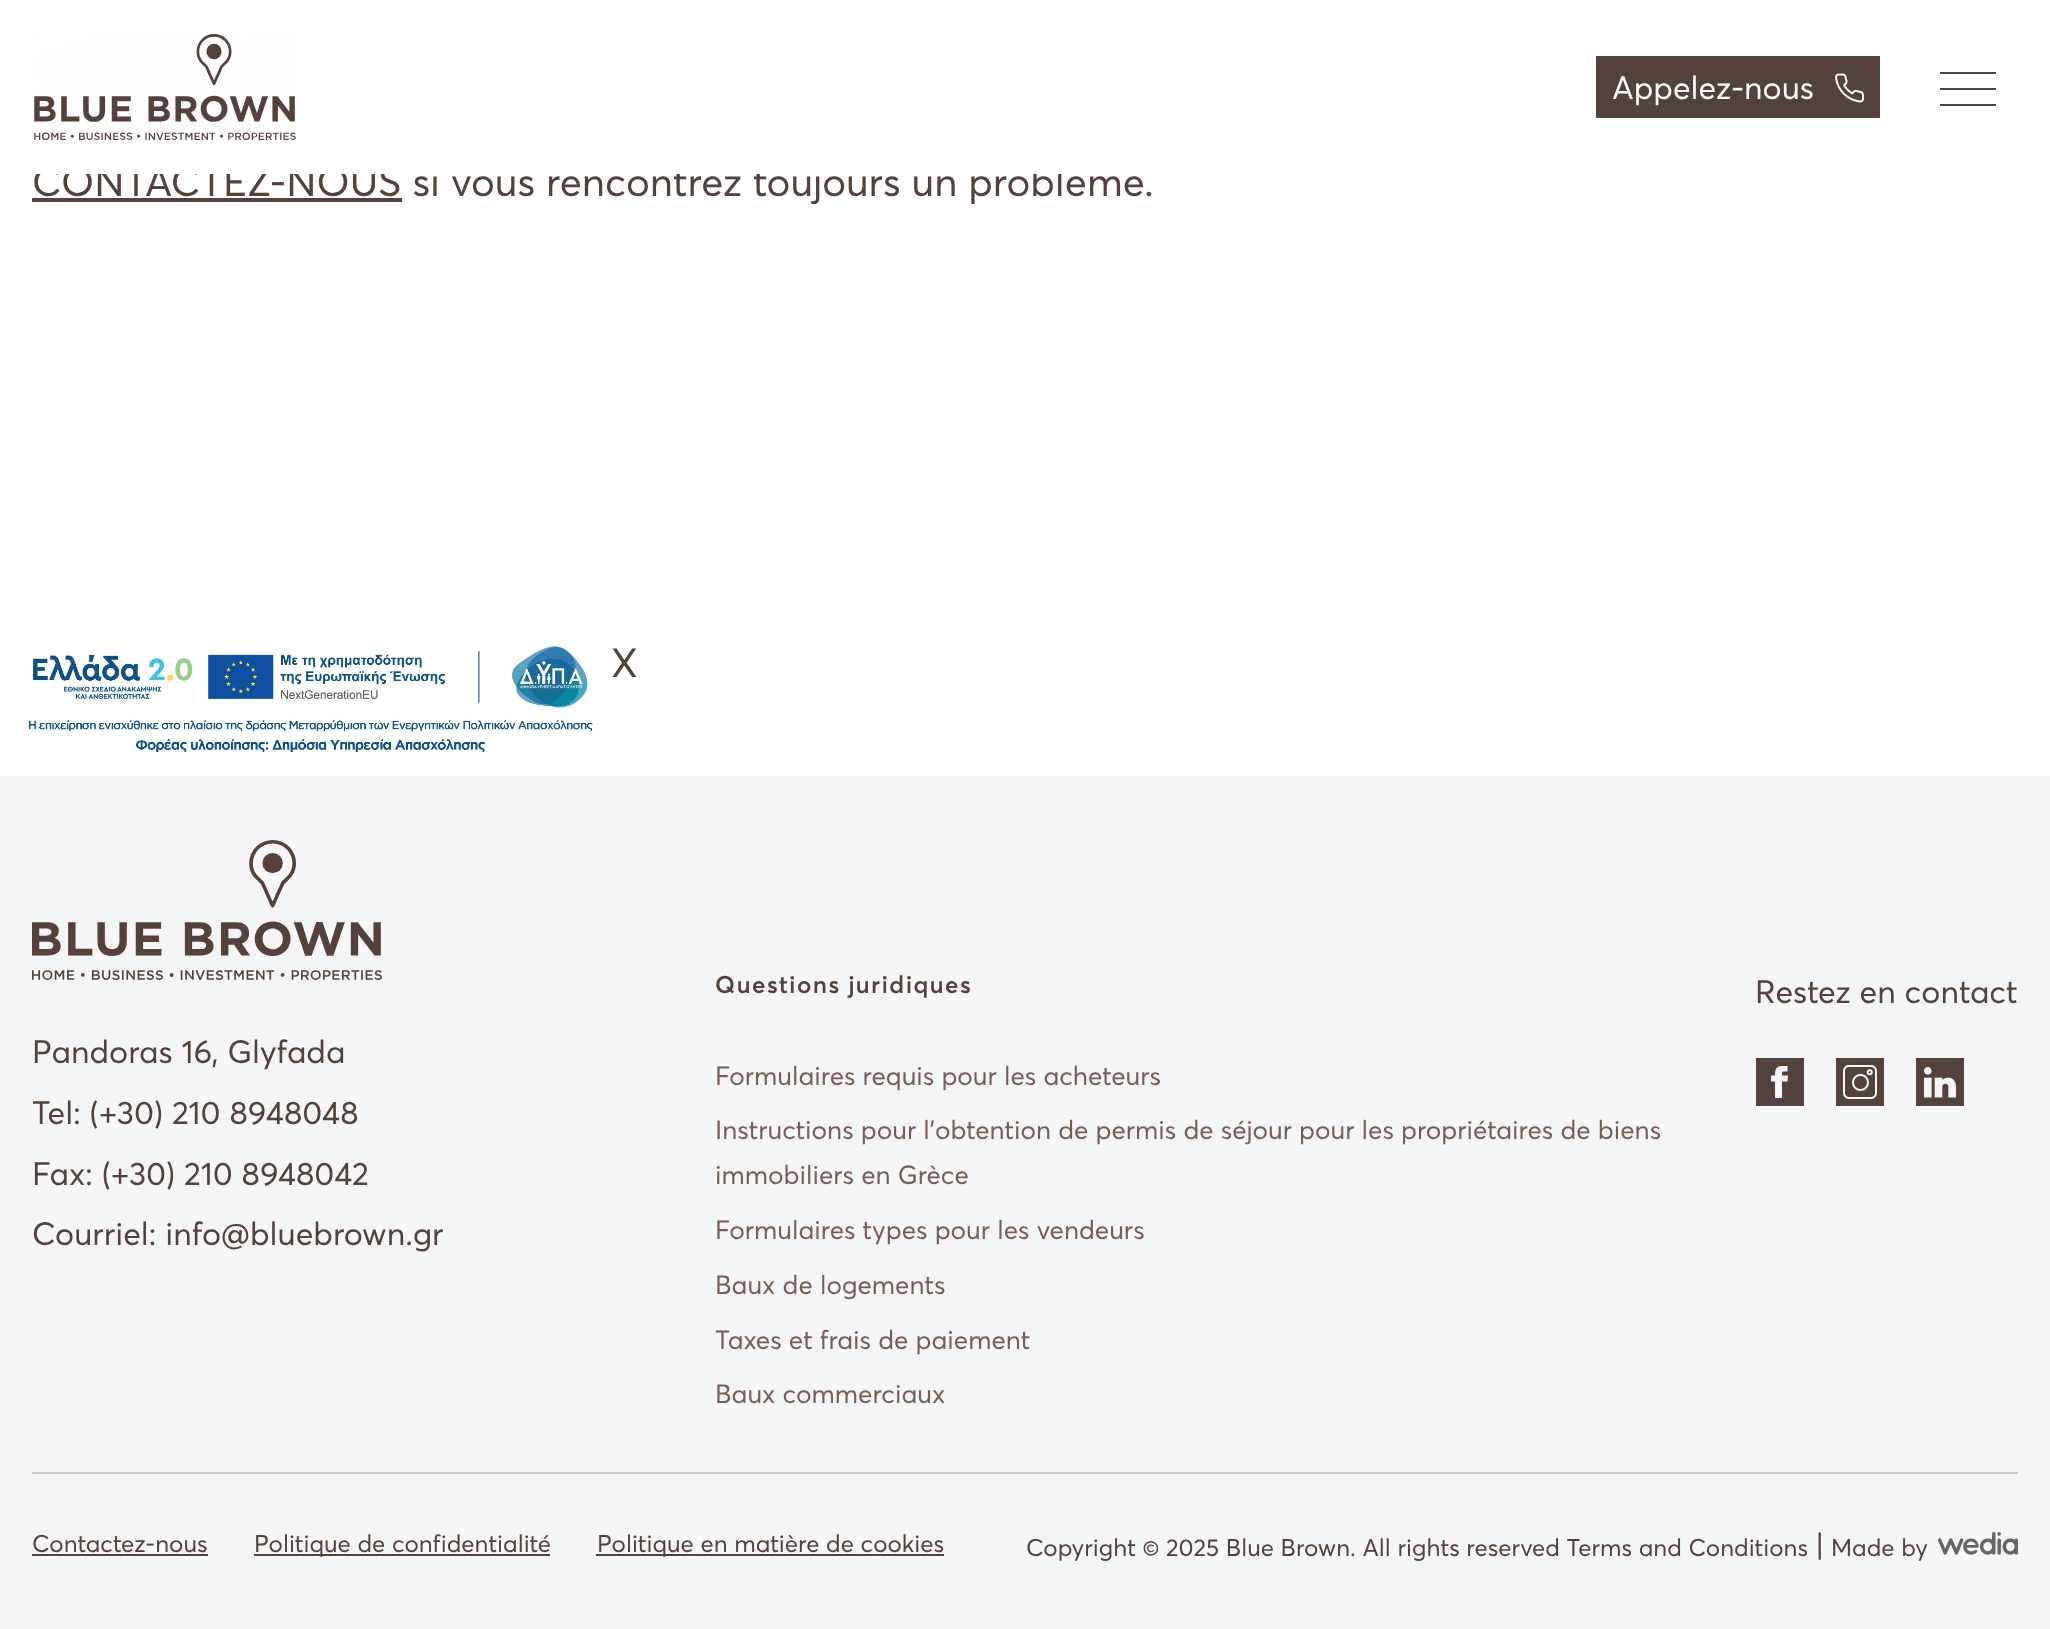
<svg xmlns="http://www.w3.org/2000/svg" width="2050" height="1629">
	<rect width="100%" height="100%" fill="#FFFFFF" />
	<rect x="32" y="198" width="370" height="4" fill="#53413C" />
	<text x="32" y="196" font-family="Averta" font-size="40" fill="#53413C">CONTACTEZ-NOUS si vous rencontrez toujours un problème.</text>
	<rect x="36" y="166" width="1043" height="8" fill="#FFFFFF" />
	<image x="34" y="34" width="262" height="106" href="assets/img1.png" />
	<rect x="1596" y="56" width="284" height="62" fill="#53413C" />
	<text x="1612" y="99" font-family="Averta" font-size="32" fill="#FFFFFF">Appelez-nous</text>
	<image x="1835" y="73" width="29" height="30" href="assets/img2.png" />
	<rect x="1940" y="72" width="56" height="2" fill="#53413C" />
	<rect x="1940" y="88" width="56" height="2" fill="#53413C" />
	<rect x="1940" y="104" width="56" height="2" fill="#53413C" />
	<image x="29" y="646" width="564" height="106" href="assets/img3.png" />
	<text x="611" y="677" font-family="Averta" font-size="40" fill="#53413C">X</text>
	<rect x="0" y="776" width="2050" height="853" fill="#F4F5F6" />
	<text x="715" y="993" font-family="Averta" font-size="24" font-weight="600" letter-spacing="1.4" fill="#53413C">Questions juridiques</text>
	<g font-family="Averta" font-size="26" fill="#765E56">
		<text x="715" y="1085">Formulaires requis pour les acheteurs</text>
		<text x="715" y="1139">Instructions pour l'obtention de permis de séjour pour les propriétaires de biens</text>
		<text x="715" y="1184">immobiliers en Grèce</text>
		<text x="715" y="1239">Formulaires types pour les vendeurs</text>
		<text x="715" y="1294">Baux de logements</text>
		<text x="715" y="1349">Taxes et frais de paiement</text>
		<text x="715" y="1403">Baux commerciaux</text>
	</g>
	<text x="1755" y="1003" font-family="Averta" font-size="32" fill="#53413C">Restez en contact</text>
	<rect x="1756" y="1058" width="48" height="48" fill="#53413C" />
	<path d="M1788 1075.5H1782C1782 1070.5 1782.5 1071.5 1787.5 1071.5V1066C1778.5 1066 1775 1065 1775 1075.5H1771V1081.5H1775V1098H1782V1081.5H1787.5Z" fill="#F4F5F6" />
	<image x="1836" y="1058" width="48" height="48" href="assets/img4.png" />
	<image x="1916" y="1058" width="48" height="48" href="assets/img5.png" />
	<image x="32" y="840" width="350" height="140" href="assets/img6.png" />
	<g font-family="Averta" font-size="32" fill="#53413C">
		<text x="32" y="1063">Pandoras 16, Glyfada</text>
		<text x="32" y="1124">Tel: (+30) 210 8948048</text>
		<text x="32" y="1185">Fax: (+30) 210 8948042</text>
		<text x="32" y="1245">Courriel: info@bluebrown.gr</text>
	</g>
	<rect x="32" y="1472" width="1986" height="2" fill="#D4C8C4" />
	<text x="32" y="1552" font-family="Averta" font-size="24" fill="#53413C">Contactez-nous</text>
	<rect x="32" y="1554" width="176" height="2" fill="#53413C" />
	<rect x="254" y="1554" width="296" height="2" fill="#53413C" />
	<text x="254" y="1552" font-family="Averta" font-size="24" fill="#53413C">Politique de confidentialité</text>
	<rect x="596" y="1554" width="348" height="2" fill="#53413C" />
	<g font-family="Averta" font-size="24" fill="#53413C">
		<text x="597" y="1552">Politique en matière de cookies</text>
		<text x="1026" y="1556">Copyright © 2025 Blue Brown. All rights reserved Terms and Conditions</text>
	</g>
	<text x="1815" y="1556" font-family="Averta" font-size="32" fill="#53413C">|</text>
	<text x="1831" y="1556" font-family="Averta" font-size="24" fill="#53413C">Made by</text>
	<image x="1938" y="1532" width="80" height="23" href="assets/img7.png" />
</svg>
